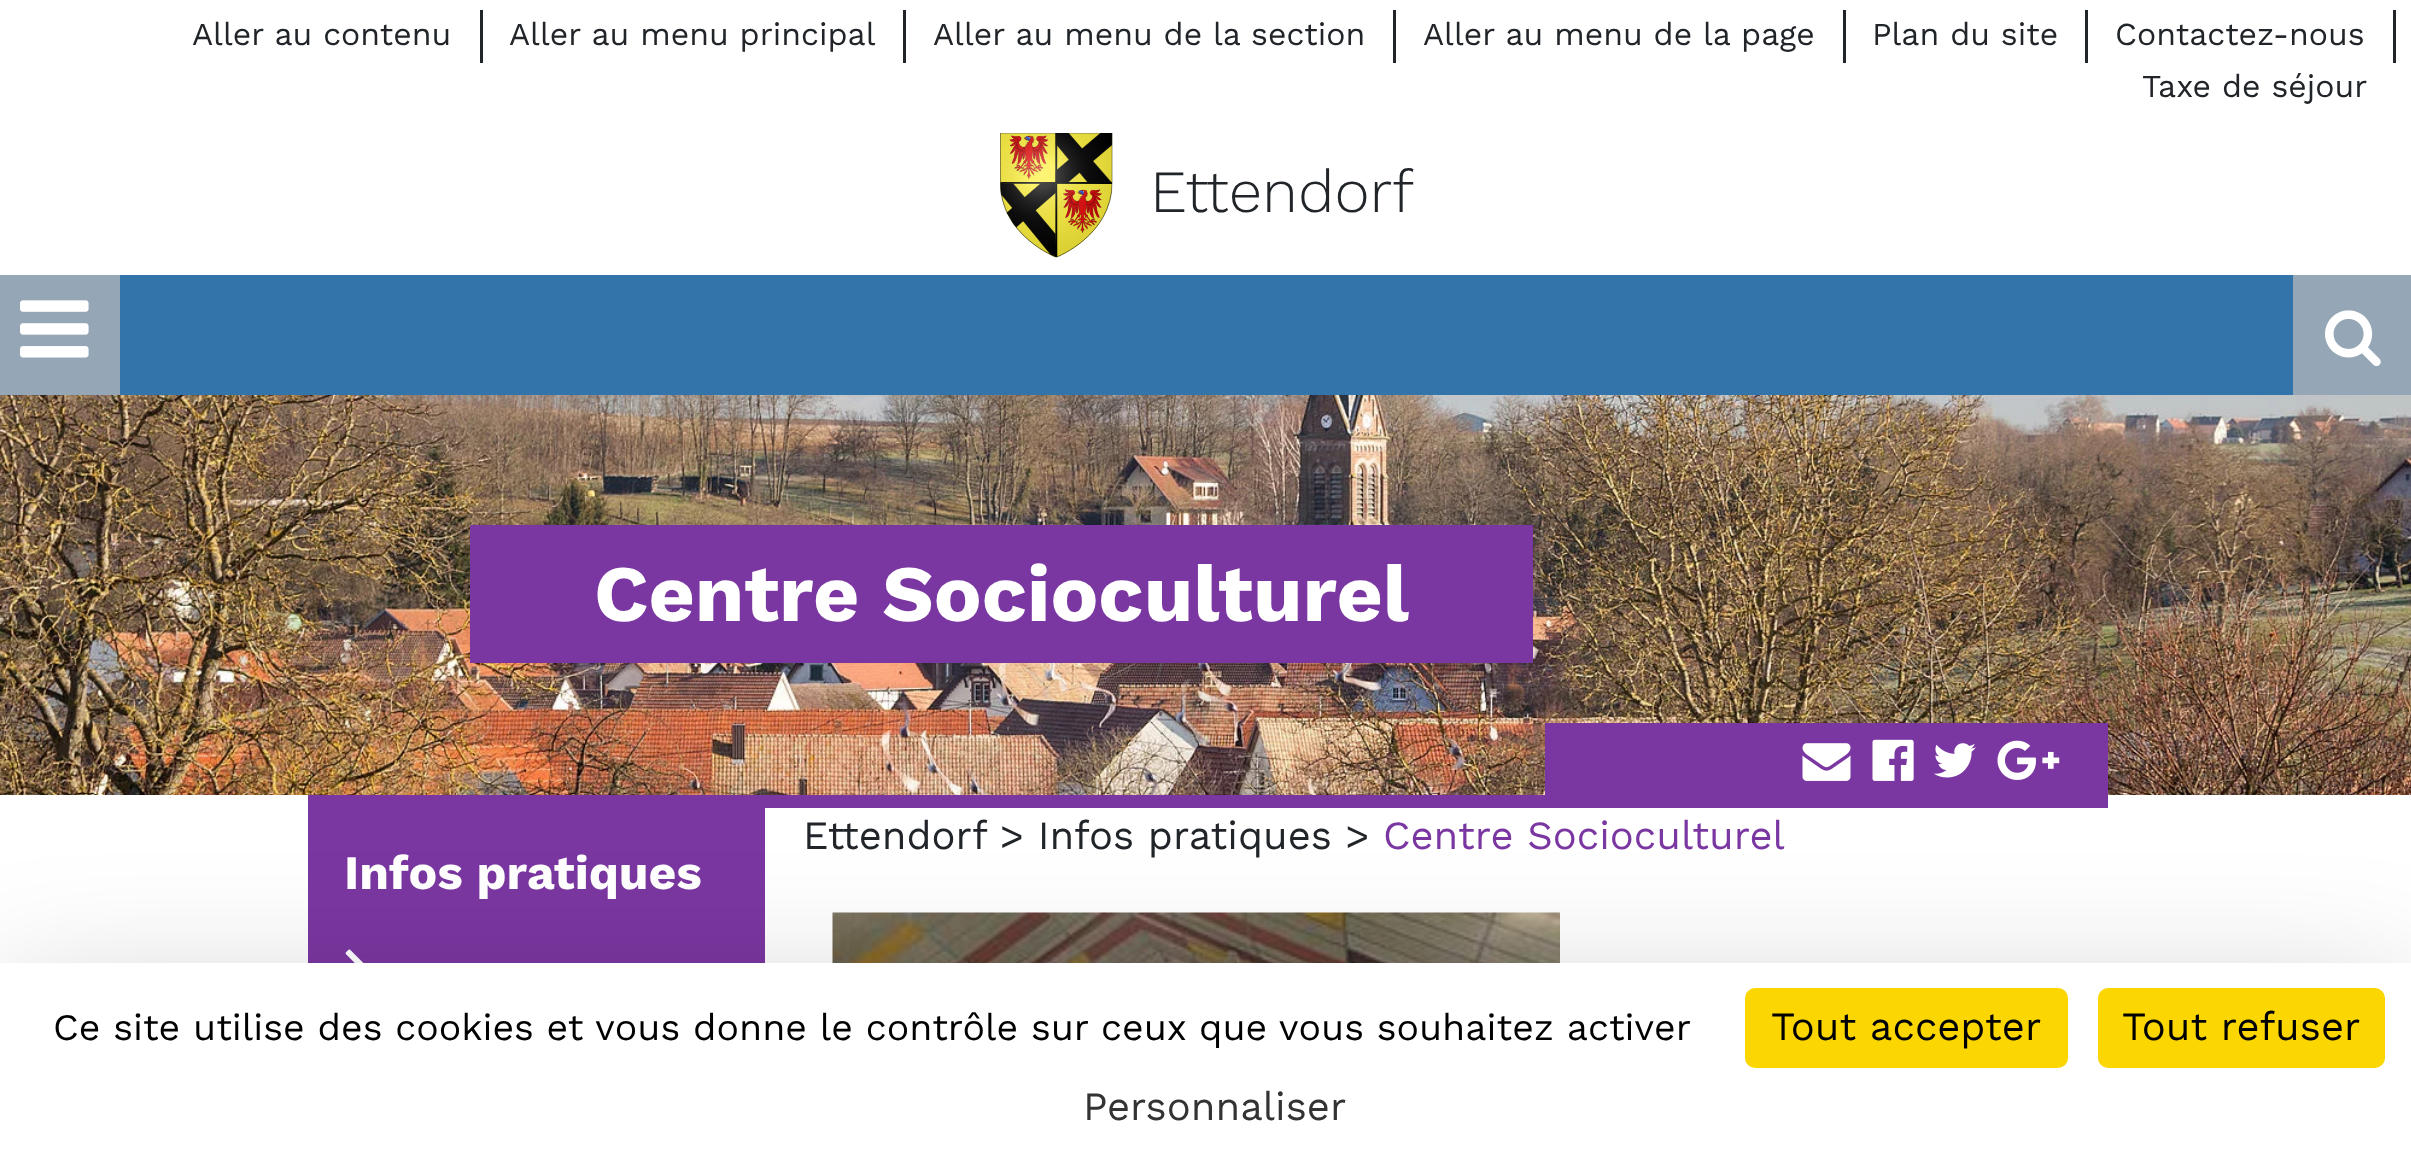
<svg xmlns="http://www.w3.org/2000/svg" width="2411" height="1171">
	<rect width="100%" height="100%" fill="#FFFFFF" />
	<rect x="480" y="10" width="3" height="53" fill="#212529" />
	<text x="192" y="45" font-family="Work Sans" font-size="32" fill="#212529">Aller au contenu</text>
	<rect x="903" y="10" width="3" height="53" fill="#212529" />
	<text x="509" y="45" font-family="Work Sans" font-size="32" fill="#212529">Aller au menu principal</text>
	<rect x="1393" y="10" width="3" height="53" fill="#212529" />
	<text x="933" y="45" font-family="Work Sans" font-size="32" fill="#212529">Aller au menu de la section</text>
	<rect x="1843" y="10" width="3" height="53" fill="#212529" />
	<text x="1423" y="45" font-family="Work Sans" font-size="32" fill="#212529">Aller au menu de la page</text>
	<rect x="2085" y="10" width="3" height="53" fill="#212529" />
	<text x="1872" y="45" font-family="Work Sans" font-size="32" fill="#212529">Plan du site</text>
	<rect x="2393" y="10" width="3" height="53" fill="#212529" />
	<g font-family="Work Sans" font-size="32" fill="#212529">
		<text x="2115" y="45">Contactez-nous</text>
		<text x="2142" y="97">Taxe de séjour</text>
	</g>
	<image x="1000" y="133" width="113" height="125" href="assets/img1.png" />
	<text x="1150" y="212" font-family="Work Sans" font-size="60" font-weight="300" fill="#212529">Ettendorf</text>
	<rect x="120" y="275" width="2173" height="120" fill="#3374AA" />
	<rect x="0" y="275" width="120" height="120" fill="#95A6B6" />
	<image x="20" y="300" width="69" height="58" href="assets/img2.png" />
	<rect x="2293" y="275" width="118" height="120" fill="#95A6B6" />
	<image x="2325" y="310" width="56" height="57" href="assets/img3.png" />
	<image x="0" y="395" width="2411" height="400" href="assets/img4.png" />
	<rect x="470" y="525" width="1063" height="138" fill="#7B37A1" />
	<text x="594" y="621" font-family="Work Sans" font-size="80" font-weight="700" fill="#FFFFFF">Centre Socioculturel</text>
	<rect x="308" y="795" width="1800" height="13" fill="#7B37A1" />
	<rect x="1545" y="723" width="563" height="72" fill="#7B37A1" />
	<image x="1802" y="743" width="49" height="38" href="assets/img5.png" />
	<image x="1872" y="739" width="42" height="42" href="assets/img6.png" />
	<image x="1933" y="743" width="43" height="35" href="assets/img7.png" />
	<image x="1997" y="740" width="63" height="40" href="assets/img8.png" />
	<g font-family="Work Sans" font-size="40" fill="#212529">
		<text x="803" y="849">Ettendorf</text>
		<text x="1000" y="849">&gt; Infos pratiques &gt;</text>
	</g>
	<text x="1383" y="849" font-family="Work Sans" font-size="40" fill="#7B37A1">Centre Socioculturel</text>
	<image x="832" y="912" width="728" height="51" href="assets/img9.png" />
	<rect x="308" y="808" width="457" height="155" fill="#7B37A1" />
	<text x="344" y="889" font-family="Work Sans" font-size="48" font-weight="700" fill="#FFFFFF">Infos pratiques</text>
	<image x="345" y="949" width="19" height="14" href="assets/img10.png" />
	<rect x="0" y="1013" width="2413" height="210" fill="#000000" fill-opacity="0.25" filter="blur(75px)" />
	<rect x="0" y="963" width="2411" height="208" fill="#FFFFFF" />
	<text x="53" y="1040" font-family="Work Sans" font-size="37.5" fill="#000000">Ce site utilise des cookies et vous donne le contrôle sur ceux que vous souhaitez activer</text>
	<rect x="1745" y="988" width="323" height="80" rx="10" fill="#FBD600" />
	<text x="1771" y="1040" font-family="Work Sans" font-size="40" fill="#000000">Tout accepter</text>
	<rect x="2098" y="988" width="287" height="80" rx="10" fill="#FBD600" />
	<text x="2122" y="1040" font-family="Work Sans" font-size="40" fill="#000000">Tout refuser</text>
	<text x="1083" y="1120" font-family="Work Sans" font-size="40" fill="#333333">Personnaliser</text>
</svg>
